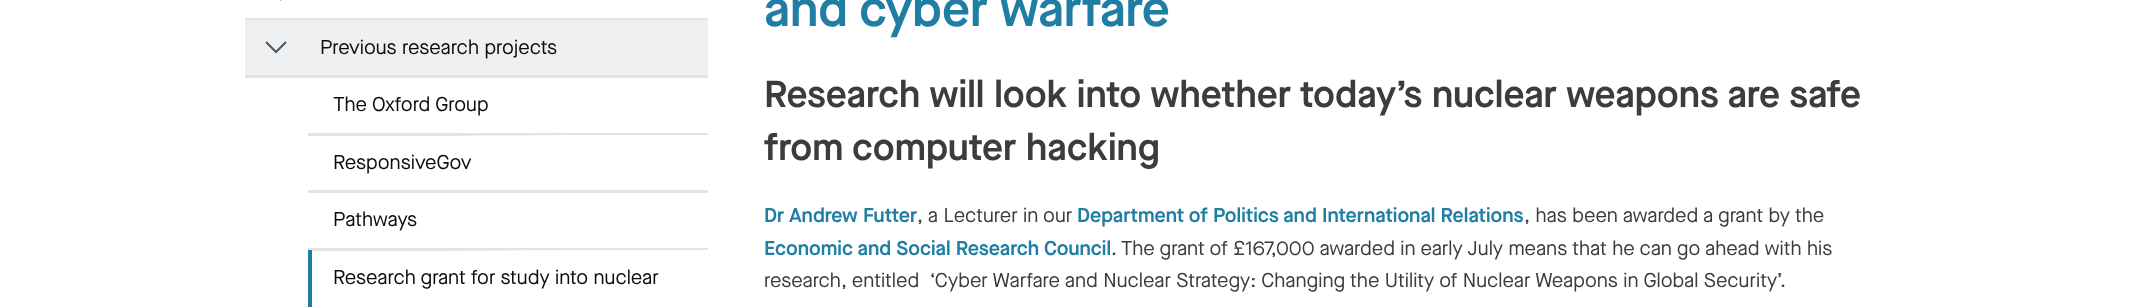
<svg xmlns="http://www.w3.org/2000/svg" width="2133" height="307">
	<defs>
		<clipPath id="clip1"><path d="M265.5 54V41H287V54Z" /></clipPath>
		<linearGradient id="g1" gradientUnits="userSpaceOnUse" x1="308" y1="163" x2="708" y2="163"><stop offset="0.3" stop-color="#FFFFFF" stop-opacity="0" /><stop offset="0.66" stop-color="#FFFFFF" /></linearGradient>
		<linearGradient id="g2" gradientUnits="userSpaceOnUse" x1="308" y1="293" x2="708" y2="293"><stop offset="0.3" stop-color="#FFFFFF" stop-opacity="0" /><stop offset="0.66" stop-color="#FFFFFF" /></linearGradient>
	</defs>
	<rect width="100%" height="100%" fill="#FFFFFF" />
	<rect x="245" y="18" width="463" height="2" fill="#E2E3E4" />
	<path d="M281.5 0L271.5-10.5L281.5-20.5" fill="none" stroke="#515B64" stroke-width="2.2" />
	<rect x="245" y="20" width="463" height="55" fill="#EFF0F1" />
	<rect x="245" y="75" width="463" height="3" fill="#E2E3E4" />
	<g clip-path="url(#clip1)">
		<path d="M286 42L276 52L266 42" fill="none" stroke="#515B64" stroke-width="2.2" />
	</g>
	<text x="320" y="54" font-family="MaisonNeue" font-size="20" fill="#0B0C0C">Previous research projects</text>
	<rect x="308" y="133" width="400" height="3" fill="#E2E3E4" />
	<text x="333" y="111" font-family="MaisonNeue" font-size="20" fill="#0B0C0C">The Oxford Group</text>
	<rect x="441" y="135" width="267" height="1" fill="url(#g1)" />
	<rect x="308" y="190" width="400" height="3" fill="#E2E3E4" />
	<text x="333" y="169" font-family="MaisonNeue" font-size="20" fill="#0B0C0C">ResponsiveGov</text>
	<rect x="308" y="248" width="400" height="3" fill="#E2E3E4" />
	<text x="333" y="226" font-family="MaisonNeue" font-size="20" fill="#0B0C0C">Pathways</text>
	<rect x="441" y="250" width="267" height="1" fill="url(#g2)" />
	<rect x="308" y="250" width="4" height="57" fill="#207EA4" />
	<text x="333" y="284" font-family="MaisonNeue" font-size="20" fill="#0B0C0C">Research grant for study into nuclear</text>
	<text x="764" y="26" font-family="MaisonNeue" font-size="50" font-weight="600" fill="#207EA4">and cyber warfare</text>
	<g font-family="MaisonNeue" font-size="37.5" font-weight="600" fill="#3C3C3C">
		<text x="764" y="107">Research will look into whether today’s nuclear weapons are safe</text>
		<text x="764" y="160">from computer hacking</text>
	</g>
	<text x="764" y="222" font-family="MaisonNeue" font-size="20" font-weight="600" fill="#207EA4">Dr Andrew Futter</text>
	<text x="917" y="222" font-family="MaisonNeue" font-size="20" fill="#3C3C3C">, a Lecturer in our</text>
	<text x="1077" y="222" font-family="MaisonNeue" font-size="20" font-weight="600" fill="#207EA4">Department of Politics and International Relations</text>
	<text x="1524" y="222" font-family="MaisonNeue" font-size="20" fill="#3C3C3C">, has been awarded a grant by the</text>
	<text x="764" y="255" font-family="MaisonNeue" font-size="20" font-weight="600" fill="#207EA4">Economic and Social Research Council</text>
	<g font-family="MaisonNeue" font-size="20" fill="#3C3C3C">
		<text x="1111" y="255">. The grant of £167,000 awarded in early July means that he can go ahead with his</text>
		<text x="764" y="287" xml:space="preserve">research, entitled  ‘Cyber Warfare and Nuclear Strategy: Changing the Utility of Nuclear Weapons in Global Security’.</text>
	</g>
</svg>
